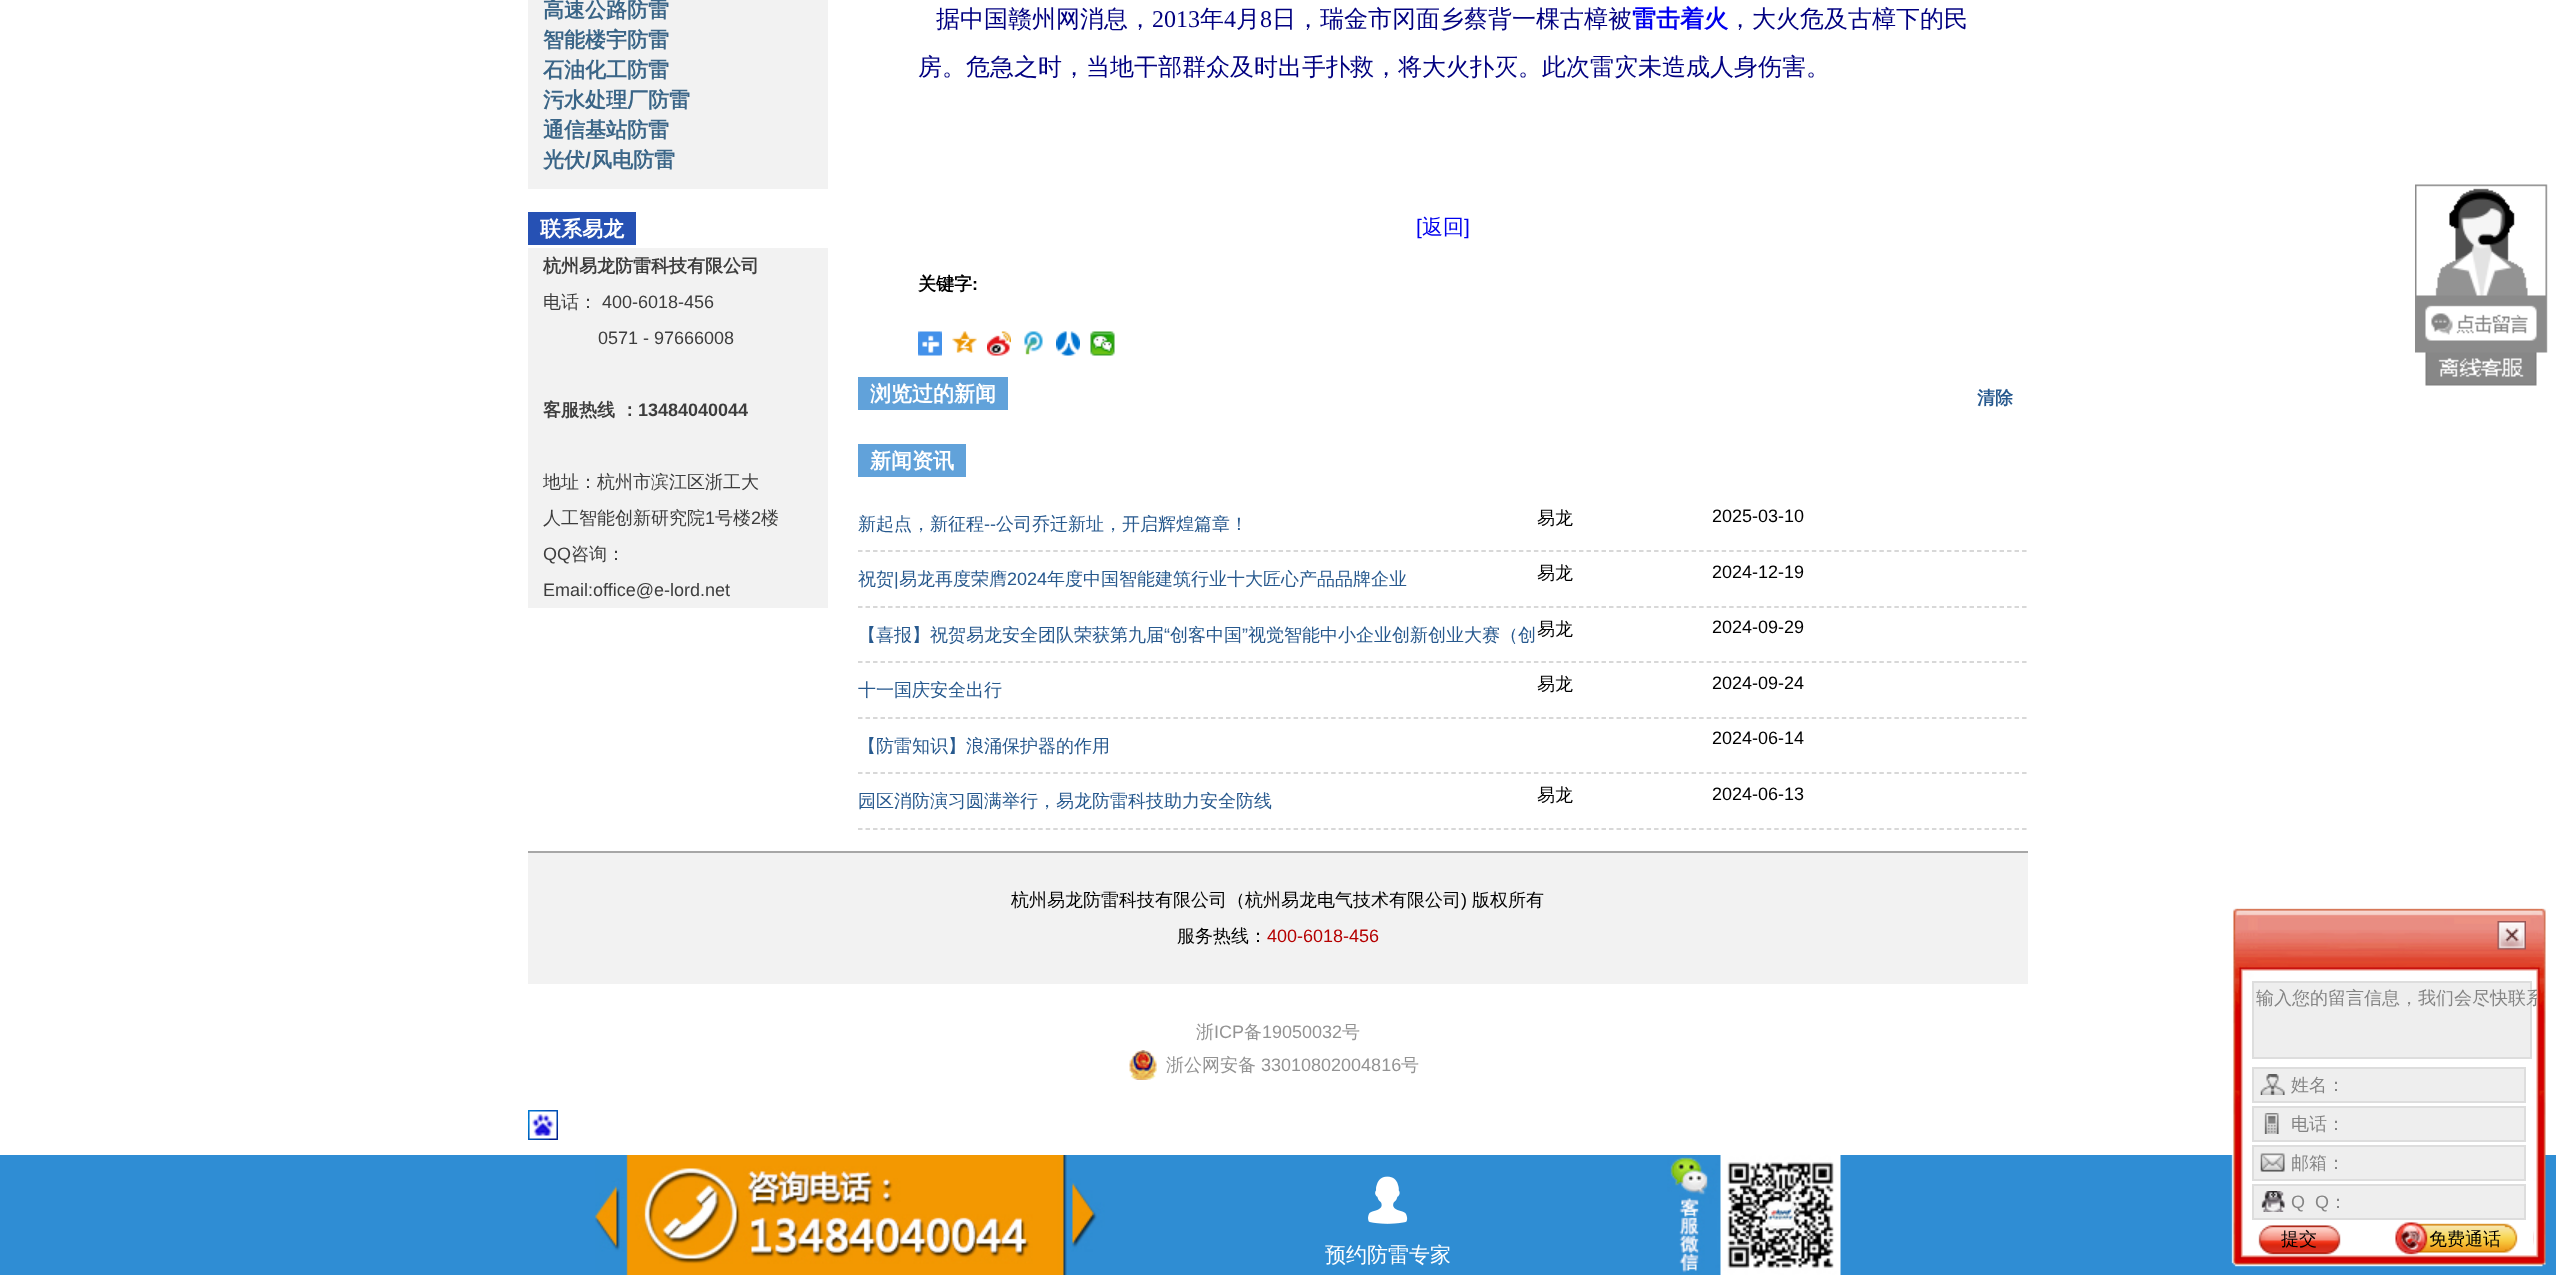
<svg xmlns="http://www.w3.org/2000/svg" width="2556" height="1275">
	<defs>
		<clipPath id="clip1"><rect x="2253" y="983" width="284" height="81" /></clipPath>
	</defs>
	<rect width="100%" height="100%" fill="#FFFFFF" />
	<rect x="528" y="0" width="300" height="189" fill="#F2F2F2" />
	<g font-family="WenQuanYi Zen Hei" font-size="21" font-weight="700" fill="#3A6587">
		<text x="543" y="17">高速公路防雷</text>
		<text x="543" y="47">智能楼宇防雷</text>
		<text x="543" y="77">石油化工防雷</text>
		<text x="543" y="107">污水处理厂防雷</text>
		<text x="543" y="137">通信基站防雷</text>
		<text x="543" y="167">光伏</text>
	</g>
	<text x="585" y="167" font-family="Liberation Sans" font-size="21" font-weight="700" fill="#3A6587">/</text>
	<text x="591" y="167" font-family="WenQuanYi Zen Hei" font-size="21" font-weight="700" fill="#3A6587">风电防雷</text>
	<rect x="528" y="212" width="108" height="33" fill="#2651B4" />
	<text x="540" y="236" font-family="WenQuanYi Zen Hei" font-size="21" font-weight="700" fill="#FFFFFF">联系易龙</text>
	<rect x="528" y="248" width="300" height="360" fill="#F2F2F2" />
	<text x="543" y="272" font-family="WenQuanYi Zen Hei" font-size="18" font-weight="700" fill="#3D3D3D">杭州易龙防雷科技有限公司</text>
	<text x="543" y="308" font-family="WenQuanYi Zen Hei" font-size="18" font-weight="500" fill="#3D3D3D">电话：</text>
	<g font-family="Liberation Sans" font-size="18" fill="#3D3D3D">
		<text x="602" y="308">400-6018-456</text>
		<text x="598" y="344">0571 - 97666008</text>
	</g>
	<text x="543" y="416" font-family="WenQuanYi Zen Hei" font-size="18" font-weight="700" fill="#3D3D3D">客服热线 ：</text>
	<text x="638" y="416" font-family="Liberation Sans" font-size="18" font-weight="700" fill="#3D3D3D">13484040044</text>
	<g font-family="WenQuanYi Zen Hei" font-size="18" font-weight="500" fill="#3D3D3D">
		<text x="543" y="488">地址：杭州市滨江区浙工大</text>
		<text x="543" y="524">人工智能创新研究院</text>
	</g>
	<text x="705" y="524" font-family="Liberation Sans" font-size="18" fill="#3D3D3D">1</text>
	<text x="715" y="524" font-family="WenQuanYi Zen Hei" font-size="18" font-weight="500" fill="#3D3D3D">号楼</text>
	<text x="751" y="524" font-family="Liberation Sans" font-size="18" fill="#3D3D3D">2</text>
	<text x="761" y="524" font-family="WenQuanYi Zen Hei" font-size="18" font-weight="500" fill="#3D3D3D">楼</text>
	<text x="543" y="560" font-family="Liberation Sans" font-size="18" fill="#3D3D3D">QQ</text>
	<text x="571" y="560" font-family="WenQuanYi Zen Hei" font-size="18" font-weight="500" fill="#3D3D3D">咨询：</text>
	<text x="543" y="596" font-family="Liberation Sans" font-size="18" fill="#3D3D3D">Email:office@e-lord.net</text>
	<text x="936" y="27" font-family="WenQuanYi Zen Hei" font-size="24" font-weight="500" fill="#000080">据中国赣州网消息，</text>
	<text x="1152" y="27" font-family="Liberation Serif" font-size="24" fill="#000080">2013</text>
	<text x="1200" y="27" font-family="WenQuanYi Zen Hei" font-size="24" font-weight="500" fill="#000080">年</text>
	<text x="1224" y="27" font-family="Liberation Serif" font-size="24" fill="#000080">4</text>
	<text x="1236" y="27" font-family="WenQuanYi Zen Hei" font-size="24" font-weight="500" fill="#000080">月</text>
	<text x="1260" y="27" font-family="Liberation Serif" font-size="24" fill="#000080">8</text>
	<text x="1272" y="27" font-family="WenQuanYi Zen Hei" font-size="24" font-weight="500" fill="#000080">日，瑞金市冈面乡蔡背一棵古樟被</text>
	<text x="1632" y="27" font-family="WenQuanYi Zen Hei" font-size="24" font-weight="700" fill="#0000EE">雷击着火</text>
	<g font-family="WenQuanYi Zen Hei" font-size="24" font-weight="500" fill="#000080">
		<text x="1728" y="27">，大火危及古樟下的民</text>
		<text x="918" y="75">房。危急之时，当地干部群众及时出手扑救，将大火扑灭。此次雷灾未造成人身伤害。</text>
	</g>
	<text x="1416" y="234" font-family="Liberation Sans" font-size="21" fill="#0000EE">[</text>
	<text x="1422" y="234" font-family="WenQuanYi Zen Hei" font-size="21" font-weight="500" fill="#0000EE">返回</text>
	<text x="1464" y="234" font-family="Liberation Sans" font-size="21" fill="#0000EE">]</text>
	<text x="918" y="290" font-family="WenQuanYi Zen Hei" font-size="18" font-weight="700" fill="#000000">关键字</text>
	<text x="972" y="290" font-family="Liberation Sans" font-size="18" font-weight="700" fill="#000000">:</text>
	<image x="918" y="331" width="24" height="25" href="assets/img1.png" />
	<image x="952" y="331" width="25" height="22" href="assets/img2.png" />
	<image x="987" y="331" width="24" height="25" href="assets/img3.png" />
	<image x="1024" y="331" width="19" height="24" href="assets/img4.png" />
	<image x="1056" y="331" width="24" height="25" href="assets/img5.png" />
	<image x="1090" y="331" width="25" height="25" href="assets/img6.png" />
	<rect x="858" y="377" width="150" height="33" fill="#61A2DA" />
	<text x="870" y="401" font-family="WenQuanYi Zen Hei" font-size="21" font-weight="700" fill="#FFFFFF">浏览过的新闻</text>
	<text x="1977" y="404" font-family="WenQuanYi Zen Hei" font-size="18" font-weight="700" fill="#27598E">清除</text>
	<rect x="858" y="444" width="108" height="33" fill="#61A2DA" />
	<text x="870" y="468" font-family="WenQuanYi Zen Hei" font-size="21" font-weight="700" fill="#FFFFFF">新闻资讯</text>
	<path d="M858 551H2028" fill="none" stroke="#CCCCCC" stroke-width="1.5" stroke-dasharray="4.5 3.01" />
	<text x="858" y="530" font-family="WenQuanYi Zen Hei" font-size="18" font-weight="500" fill="#27598E">新起点，新征程</text>
	<text x="984" y="530" font-family="Liberation Sans" font-size="18" fill="#27598E">--</text>
	<text x="996" y="530" font-family="WenQuanYi Zen Hei" font-size="18" font-weight="500" fill="#27598E">公司乔迁新址，开启辉煌篇章！</text>
	<text x="1537" y="524" font-family="WenQuanYi Zen Hei" font-size="18" font-weight="500" fill="#000000">易龙</text>
	<text x="1712" y="522" font-family="Liberation Sans" font-size="18" fill="#000000">2025-03-10</text>
	<path d="M858 607H2028" fill="none" stroke="#CCCCCC" stroke-width="1.5" stroke-dasharray="4.5 3.01" />
	<text x="858" y="585" font-family="WenQuanYi Zen Hei" font-size="18" font-weight="500" fill="#27598E">祝贺</text>
	<text x="894" y="585" font-family="Liberation Sans" font-size="18" fill="#27598E">|</text>
	<text x="899" y="585" font-family="WenQuanYi Zen Hei" font-size="18" font-weight="500" fill="#27598E">易龙再度荣膺</text>
	<text x="1007" y="585" font-family="Liberation Sans" font-size="18" fill="#27598E">2024</text>
	<text x="1047" y="585" font-family="WenQuanYi Zen Hei" font-size="18" font-weight="500" fill="#27598E">年度中国智能建筑行业十大匠心产品品牌企业</text>
	<text x="1537" y="579" font-family="WenQuanYi Zen Hei" font-size="18" font-weight="500" fill="#000000">易龙</text>
	<text x="1712" y="578" font-family="Liberation Sans" font-size="18" fill="#000000">2024-12-19</text>
	<path d="M858 662H2028" fill="none" stroke="#CCCCCC" stroke-width="1.5" stroke-dasharray="4.5 3.01" />
	<text x="858" y="641" font-family="WenQuanYi Zen Hei" font-size="18" font-weight="500" fill="#27598E">【喜报】祝贺易龙安全团队荣获第九届</text>
	<text x="1164" y="641" font-family="Liberation Sans" font-size="18" fill="#27598E">“</text>
	<text x="1170" y="641" font-family="WenQuanYi Zen Hei" font-size="18" font-weight="500" fill="#27598E">创客中国</text>
	<text x="1242" y="641" font-family="Liberation Sans" font-size="18" fill="#27598E">”</text>
	<text x="1248" y="641" font-family="WenQuanYi Zen Hei" font-size="18" font-weight="500" fill="#27598E">视觉智能中小企业创新创业大赛（创</text>
	<text x="1537" y="635" font-family="WenQuanYi Zen Hei" font-size="18" font-weight="500" fill="#000000">易龙</text>
	<text x="1712" y="633" font-family="Liberation Sans" font-size="18" fill="#000000">2024-09-29</text>
	<path d="M858 718H2028" fill="none" stroke="#CCCCCC" stroke-width="1.5" stroke-dasharray="4.5 3.01" />
	<text x="858" y="696" font-family="WenQuanYi Zen Hei" font-size="18" font-weight="500" fill="#27598E">十一国庆安全出行</text>
	<text x="1537" y="690" font-family="WenQuanYi Zen Hei" font-size="18" font-weight="500" fill="#000000">易龙</text>
	<text x="1712" y="689" font-family="Liberation Sans" font-size="18" fill="#000000">2024-09-24</text>
	<path d="M858 773H2028" fill="none" stroke="#CCCCCC" stroke-width="1.5" stroke-dasharray="4.5 3.01" />
	<text x="858" y="752" font-family="WenQuanYi Zen Hei" font-size="18" font-weight="500" fill="#27598E">【防雷知识】浪涌保护器的作用</text>
	<text x="1712" y="744" font-family="Liberation Sans" font-size="18" fill="#000000">2024-06-14</text>
	<path d="M858 829H2028" fill="none" stroke="#CCCCCC" stroke-width="1.5" stroke-dasharray="4.5 3.01" />
	<text x="858" y="807" font-family="WenQuanYi Zen Hei" font-size="18" font-weight="500" fill="#27598E">园区消防演习圆满举行，易龙防雷科技助力安全防线</text>
	<text x="1537" y="801" font-family="WenQuanYi Zen Hei" font-size="18" font-weight="500" fill="#000000">易龙</text>
	<text x="1712" y="800" font-family="Liberation Sans" font-size="18" fill="#000000">2024-06-13</text>
	<rect x="528" y="853" width="1500" height="131" fill="#F2F2F2" />
	<rect x="528" y="851" width="1500" height="2" fill="#A7A7A7" />
	<text x="1011" y="906" font-family="WenQuanYi Zen Hei" font-size="18" font-weight="500" fill="#000000">杭州易龙防雷科技有限公司（杭州易龙电气技术有限公司</text>
	<text x="1461" y="906" font-family="Liberation Sans" font-size="18" fill="#000000">)</text>
	<g font-family="WenQuanYi Zen Hei" font-size="18" font-weight="500" fill="#000000">
		<text x="1472" y="906">版权所有</text>
		<text x="1177" y="942">服务热线：</text>
	</g>
	<text x="1267" y="942" font-family="Liberation Sans" font-size="18" fill="#B50000">400-6018-456</text>
	<text x="1196" y="1038" font-family="WenQuanYi Zen Hei" font-size="18" font-weight="500" fill="#939393">浙</text>
	<text x="1214" y="1038" font-family="Liberation Sans" font-size="18" fill="#939393">ICP</text>
	<text x="1244" y="1038" font-family="WenQuanYi Zen Hei" font-size="18" font-weight="500" fill="#939393">备</text>
	<text x="1262" y="1038" font-family="Liberation Sans" font-size="18" fill="#939393">19050032</text>
	<text x="1342" y="1038" font-family="WenQuanYi Zen Hei" font-size="18" font-weight="500" fill="#939393">号</text>
	<image x="1129" y="1050" width="28" height="30" href="assets/img7.png" />
	<text x="1166" y="1071" font-family="WenQuanYi Zen Hei" font-size="18" font-weight="500" fill="#939393">浙公网安备</text>
	<text x="1261" y="1071" font-family="Liberation Sans" font-size="18" fill="#939393">33010802004816</text>
	<text x="1401" y="1071" font-family="WenQuanYi Zen Hei" font-size="18" font-weight="500" fill="#939393">号</text>
	<image x="528" y="1110" width="30" height="30" href="assets/img8.png" />
	<image x="2415" y="184" width="133" height="202" href="assets/img9.png" />
	<rect x="0" y="1155" width="2556" height="120" fill="#2F8DD4" />
	<image x="2231" y="908" width="315" height="359" href="assets/img10.png" />
	<image x="2497" y="921" width="29" height="29" href="assets/img11.png" />
	<rect x="2253" y="982" width="278" height="76" fill="#EEEEEE" stroke="#DDDDDD" stroke-width="2" />
	<g clip-path="url(#clip1)">
		<text x="2256" y="1004" font-family="WenQuanYi Zen Hei" font-size="18" font-weight="500" fill="#848484">输入您的留言信息，我们会尽快联系</text>
	</g>
	<rect x="2253" y="1068" width="272" height="34" fill="#EEEEEE" stroke="#DDDDDD" stroke-width="2" />
	<image x="2260" y="1074" width="25" height="21" href="assets/img12.png" />
	<text x="2291" y="1091" font-family="WenQuanYi Zen Hei" font-size="18" font-weight="500" fill="#848484">姓名：</text>
	<rect x="2253" y="1107" width="272" height="34" fill="#EEEEEE" stroke="#DDDDDD" stroke-width="2" />
	<image x="2264" y="1113" width="15" height="21" href="assets/img13.png" />
	<text x="2291" y="1130" font-family="WenQuanYi Zen Hei" font-size="18" font-weight="500" fill="#848484">电话：</text>
	<rect x="2253" y="1146" width="272" height="34" fill="#EEEEEE" stroke="#DDDDDD" stroke-width="2" />
	<image x="2260" y="1153" width="25" height="19" href="assets/img14.png" />
	<text x="2291" y="1169" font-family="WenQuanYi Zen Hei" font-size="18" font-weight="500" fill="#848484">邮箱：</text>
	<rect x="2253" y="1185" width="272" height="34" fill="#EEEEEE" stroke="#DDDDDD" stroke-width="2" />
	<image x="2261" y="1191" width="24" height="21" href="assets/img15.png" />
	<text x="2291" y="1208" font-family="Liberation Sans" font-size="18" fill="#848484" xml:space="preserve">Q  Q</text>
	<text x="2329" y="1208" font-family="WenQuanYi Zen Hei" font-size="18" font-weight="500" fill="#848484">：</text>
	<image x="2258" y="1225" width="83" height="30" href="assets/img16.png" />
	<text x="2281" y="1245" font-family="WenQuanYi Zen Hei" font-size="18" font-weight="500" fill="#000000">提交</text>
	<image x="2395" y="1222" width="139" height="33" href="assets/img17.png" />
	<text x="2429" y="1245" font-family="WenQuanYi Zen Hei" font-size="18" font-weight="500" fill="#000000">免费通话</text>
	<image x="595" y="1155" width="1246" height="120" href="assets/img18.png" />
	<image x="1368" y="1176" width="40" height="48" href="assets/img19.png" />
	<text x="1325" y="1262" font-family="WenQuanYi Zen Hei" font-size="21" font-weight="500" fill="#FFFFFF">预约防雷专家</text>
</svg>
